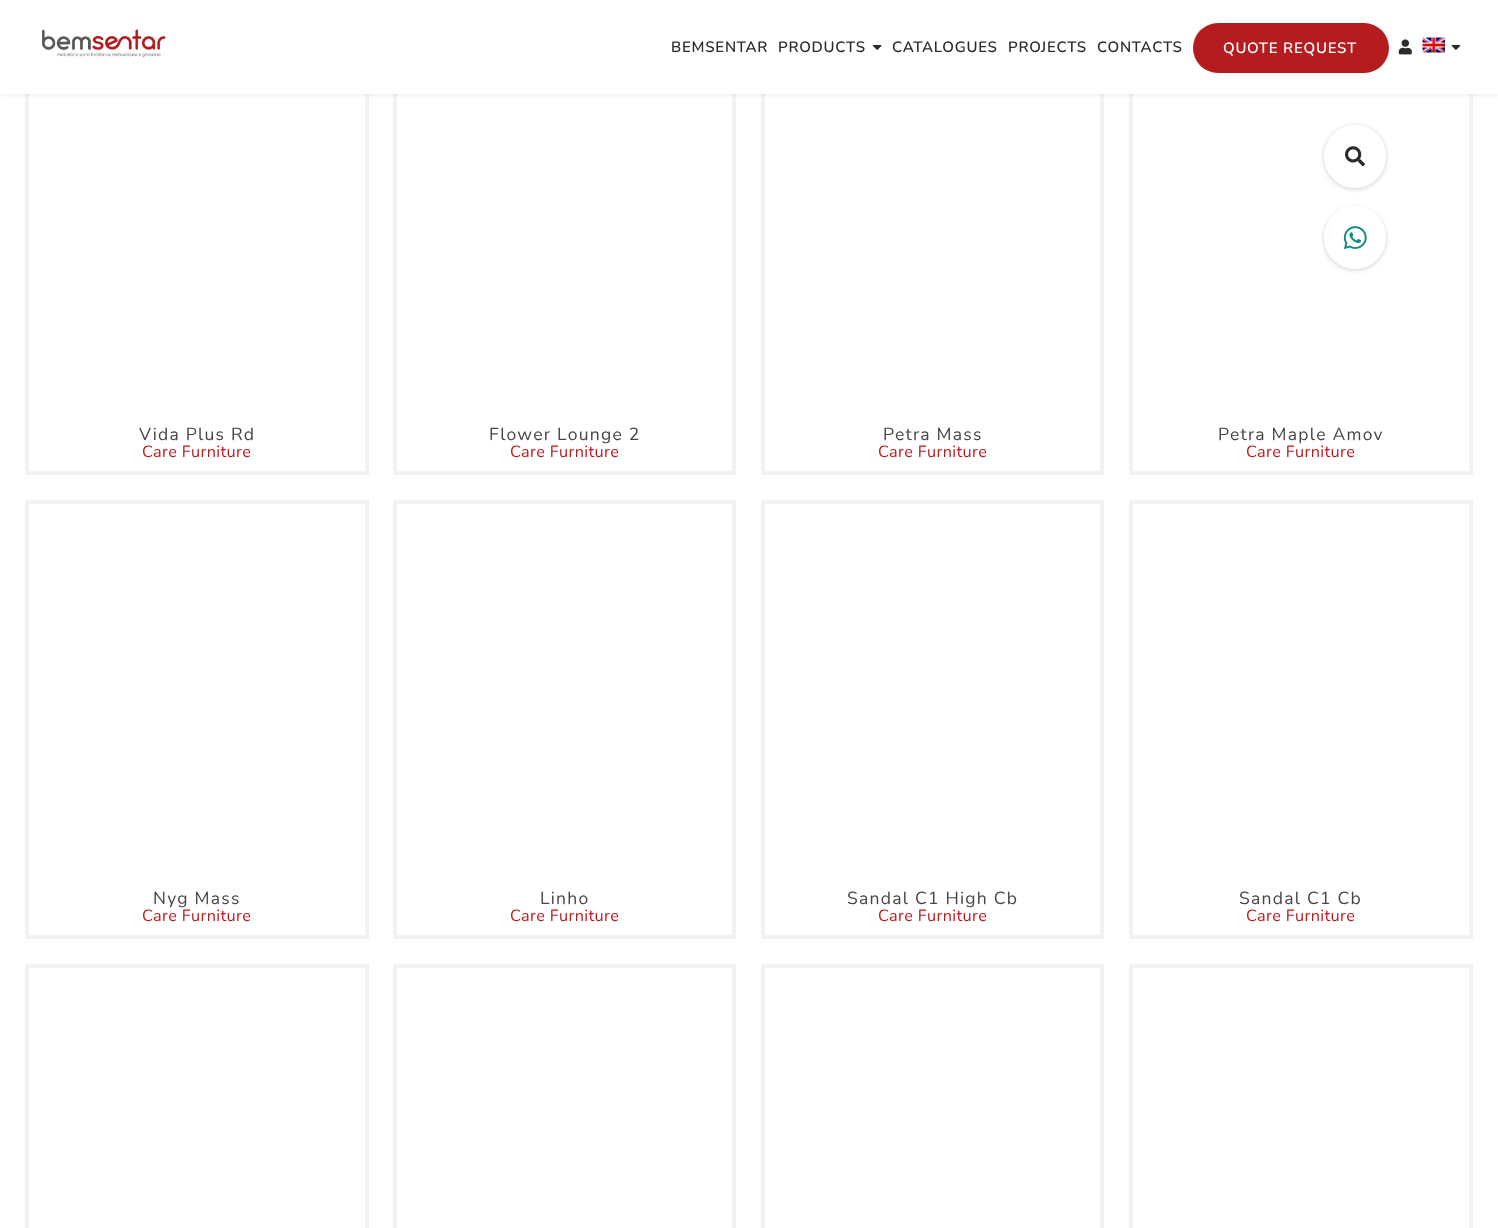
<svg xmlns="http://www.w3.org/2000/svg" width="1498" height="1228">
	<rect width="100%" height="100%" fill="#FFFFFF" />
	<rect x="27" y="38" width="340" height="435" fill="none" stroke="#F2F2F2" stroke-width="4" />
	<rect x="395" y="38" width="339" height="435" fill="none" stroke="#F2F2F2" stroke-width="4" />
	<rect x="763" y="38" width="339" height="435" fill="none" stroke="#F2F2F2" stroke-width="4" />
	<rect x="1131" y="38" width="340" height="435" fill="none" stroke="#F2F2F2" stroke-width="4" />
	<rect x="0" y="1" width="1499" height="94" fill="#000000" fill-opacity="0.08" filter="blur(2px)" />
	<rect x="0" y="0" width="1498" height="94" fill="#FFFFFF" />
	<image x="42" y="29" width="124" height="29" href="assets/img1.png" />
	<g font-family="Nunito" font-size="15" font-weight="600" letter-spacing="0.75" fill="#2C2B2B">
		<text x="671" y="52">BEMSENTAR</text>
		<text x="778" y="52">PRODUCTS</text>
	</g>
	<image x="872" y="45" width="10" height="5" href="assets/img2.png" />
	<g font-family="Nunito" font-size="15" font-weight="600" letter-spacing="0.75" fill="#2C2B2B">
		<text x="892" y="52">CATALOGUES</text>
		<text x="1008" y="52">PROJECTS</text>
		<text x="1097" y="52">CONTACTS</text>
	</g>
	<rect x="1193" y="23" width="196" height="50" rx="25" fill="#B51C20" />
	<text x="1223" y="53" font-family="Nunito" font-size="15" font-weight="600" letter-spacing="0.75" fill="#FFFFFF">QUOTE REQUEST</text>
	<image x="1398" y="39" width="14" height="16" href="assets/img3.png" />
	<image x="1422" y="37" width="23" height="16" href="assets/img4.png" />
	<image x="1451" y="45" width="10" height="5" href="assets/img5.png" />
	<rect x="1324" y="126" width="62" height="63" rx="31" fill="#000000" fill-opacity="0.18" filter="blur(2.5px)" />
	<rect x="1324" y="125" width="62" height="63" rx="31" fill="#FFFFFF" />
	<image x="1345" y="146" width="20" height="21" href="assets/img6.png" />
	<rect x="1324" y="208" width="62" height="62" rx="31" fill="#000000" fill-opacity="0.18" filter="blur(2.5px)" />
	<rect x="1324" y="206" width="62" height="63" rx="31" fill="#FFFFFF" />
	<image x="1343" y="226" width="24" height="24" href="assets/img7.png" />
	<text x="139" y="440" font-family="Nunito" font-size="17.5" letter-spacing="1.25" fill="#464545">Vida Plus Rd</text>
	<text x="142" y="457" font-family="Nunito" font-size="16.25" letter-spacing="0.4" fill="#B51C20">Care Furniture</text>
	<text x="489" y="440" font-family="Nunito" font-size="17.5" letter-spacing="1.25" fill="#464545">Flower Lounge 2</text>
	<text x="510" y="457" font-family="Nunito" font-size="16.25" letter-spacing="0.4" fill="#B51C20">Care Furniture</text>
	<text x="883" y="440" font-family="Nunito" font-size="17.5" letter-spacing="1.25" fill="#464545">Petra Mass</text>
	<text x="878" y="457" font-family="Nunito" font-size="16.25" letter-spacing="0.4" fill="#B51C20">Care Furniture</text>
	<text x="1218" y="440" font-family="Nunito" font-size="17.5" letter-spacing="1.25" fill="#464545">Petra Maple Amov</text>
	<text x="1246" y="457" font-family="Nunito" font-size="16.25" letter-spacing="0.4" fill="#B51C20">Care Furniture</text>
	<rect x="27" y="502" width="340" height="435" fill="none" stroke="#F2F2F2" stroke-width="4" />
	<text x="153" y="904" font-family="Nunito" font-size="17.5" letter-spacing="1.25" fill="#464545">Nyg Mass</text>
	<text x="142" y="921" font-family="Nunito" font-size="16.25" letter-spacing="0.4" fill="#B51C20">Care Furniture</text>
	<rect x="395" y="502" width="339" height="435" fill="none" stroke="#F2F2F2" stroke-width="4" />
	<text x="540" y="904" font-family="Nunito" font-size="17.5" letter-spacing="1.25" fill="#464545">Linho</text>
	<text x="510" y="921" font-family="Nunito" font-size="16.25" letter-spacing="0.4" fill="#B51C20">Care Furniture</text>
	<rect x="763" y="502" width="339" height="435" fill="none" stroke="#F2F2F2" stroke-width="4" />
	<text x="847" y="904" font-family="Nunito" font-size="17.5" letter-spacing="1.25" fill="#464545">Sandal C1 High Cb</text>
	<text x="878" y="921" font-family="Nunito" font-size="16.25" letter-spacing="0.4" fill="#B51C20">Care Furniture</text>
	<rect x="1131" y="502" width="340" height="435" fill="none" stroke="#F2F2F2" stroke-width="4" />
	<text x="1239" y="904" font-family="Nunito" font-size="17.5" letter-spacing="1.25" fill="#464545">Sandal C1 Cb</text>
	<text x="1246" y="921" font-family="Nunito" font-size="16.25" letter-spacing="0.4" fill="#B51C20">Care Furniture</text>
	<rect x="27" y="966" width="340" height="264" fill="none" stroke="#F2F2F2" stroke-width="4" />
	<rect x="395" y="966" width="339" height="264" fill="none" stroke="#F2F2F2" stroke-width="4" />
	<rect x="763" y="966" width="339" height="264" fill="none" stroke="#F2F2F2" stroke-width="4" />
	<rect x="1131" y="966" width="340" height="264" fill="none" stroke="#F2F2F2" stroke-width="4" />
</svg>
